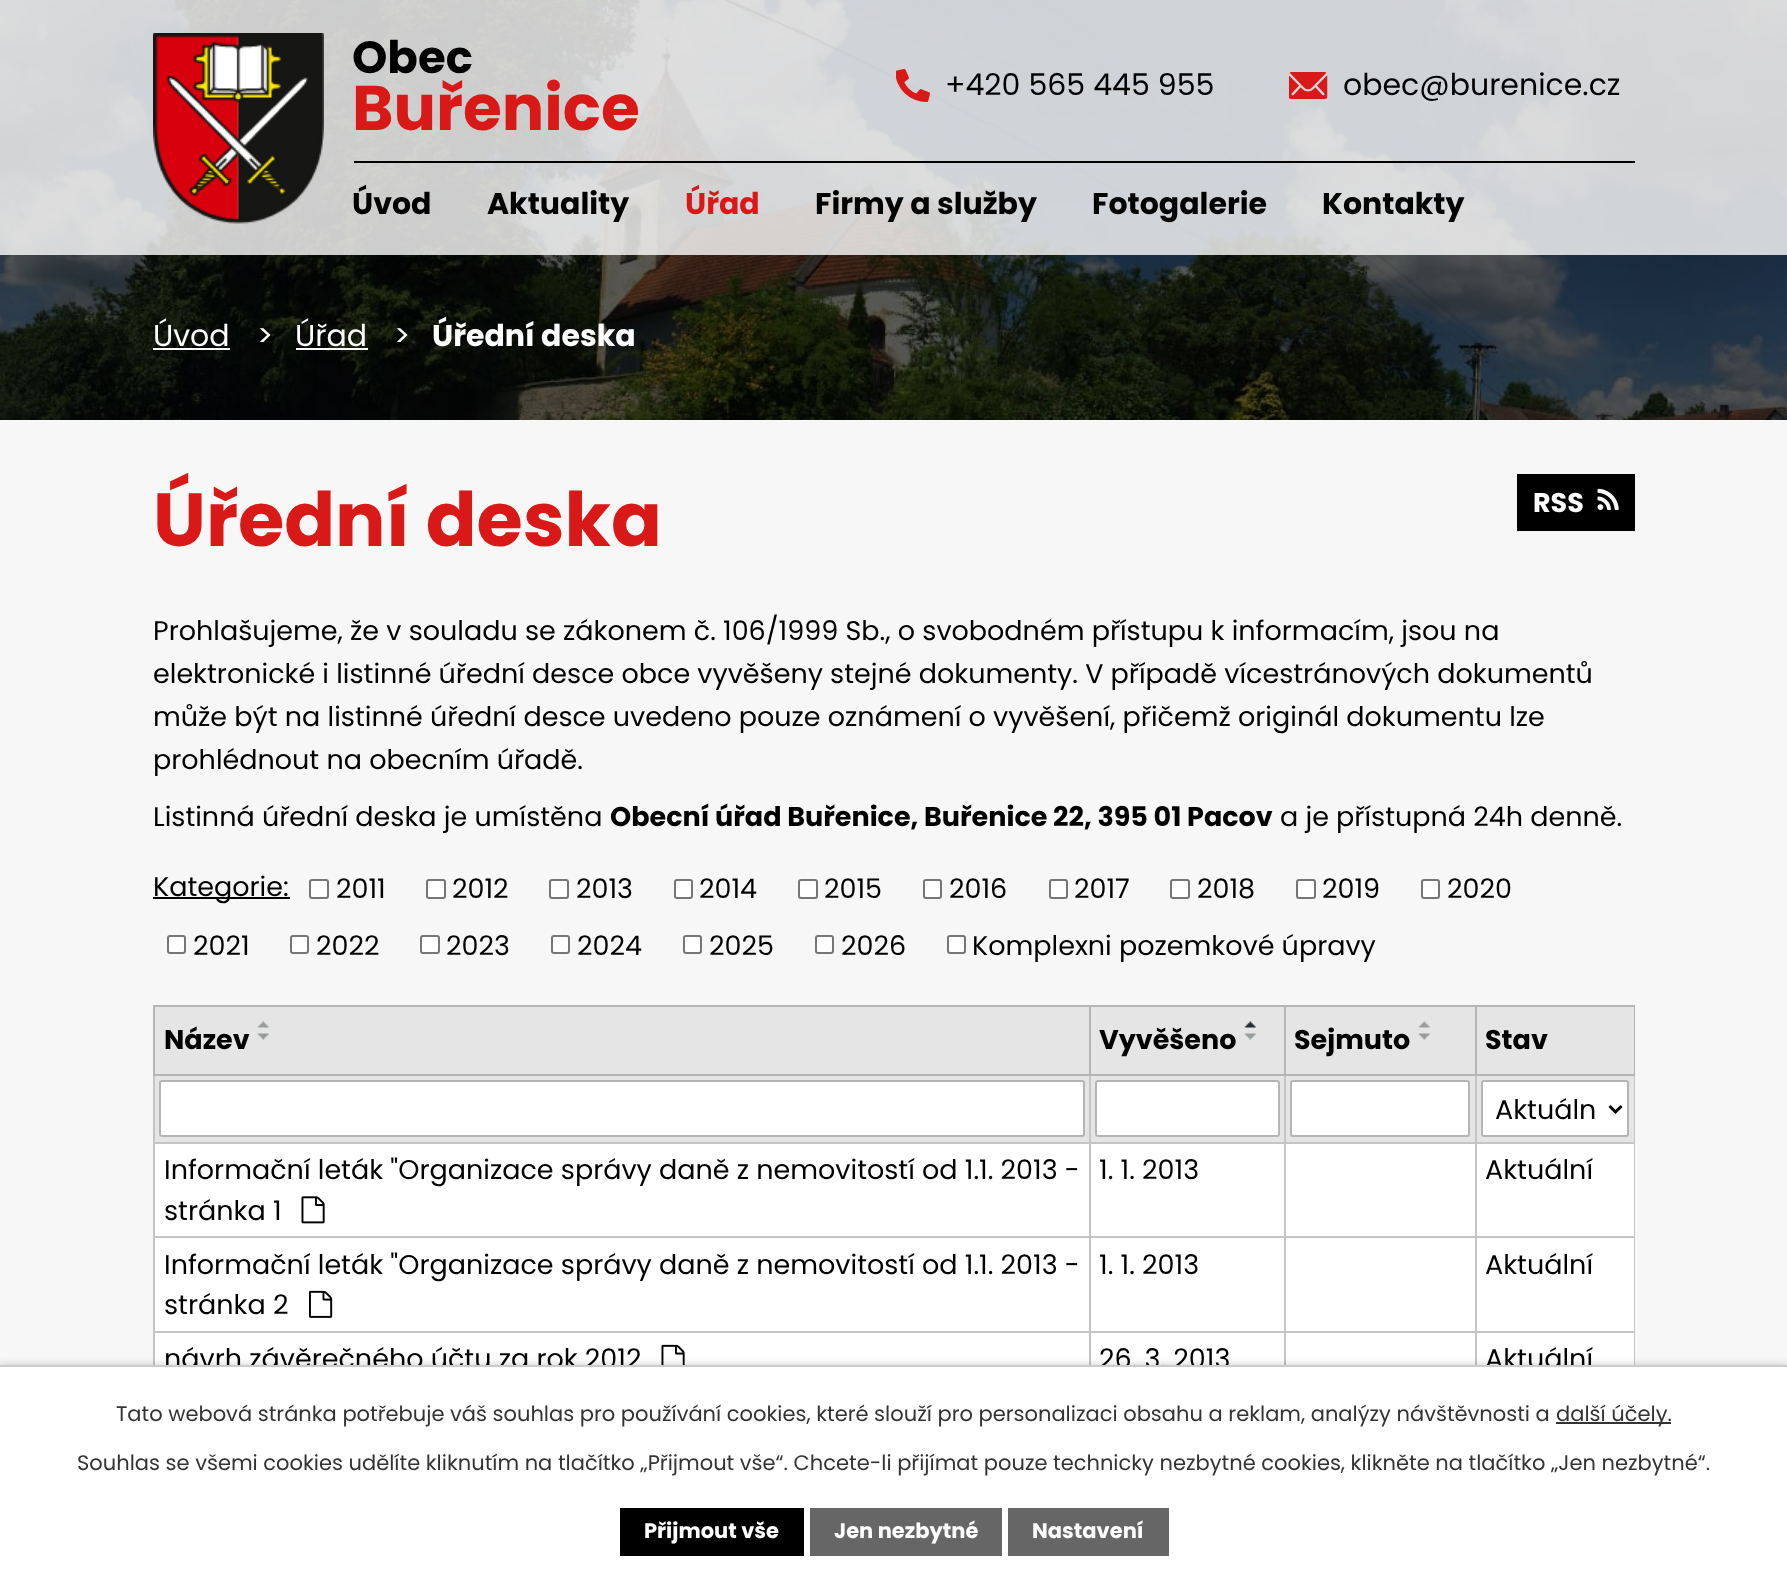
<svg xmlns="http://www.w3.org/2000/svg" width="1787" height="1583">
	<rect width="100%" height="100%" fill="#F7F7F7" />
	<image x="0" y="0" width="1787" height="420" href="assets/img4.png" />
	<rect x="0" y="0" width="1787" height="255" fill="#FFFFFF" fill-opacity="0.8" />
	<image x="153" y="33" width="171" height="191" href="assets/img1.png" />
	<text x="352" y="73" font-family="Poppins" font-size="45" font-weight="700" fill="#000000">Obec</text>
	<text x="352" y="130" font-family="Poppins" font-size="63" font-weight="700" fill="#D91917">Buřenice</text>
	<image x="896" y="69" width="34" height="33" href="assets/img2.png" />
	<text x="945" y="95" font-family="Poppins" font-size="30" fill="#000000">+420 565 445 955</text>
	<image x="1289" y="72" width="39" height="27" href="assets/img3.png" />
	<text x="1343" y="95" font-family="Poppins" font-size="30" fill="#000000">obec@burenice.cz</text>
	<rect x="354" y="161" width="1281" height="2" fill="#000000" />
	<g font-family="Poppins" font-size="30" font-weight="700" fill="#000000">
		<text x="352" y="214">Úvod</text>
		<text x="487" y="214">Aktuality</text>
	</g>
	<text x="685" y="214" font-family="Poppins" font-size="30" font-weight="700" fill="#D91917">Úřad</text>
	<g font-family="Poppins" font-size="30" font-weight="700" fill="#000000">
		<text x="815" y="214">Firmy a služby</text>
		<text x="1092" y="214">Fotogalerie</text>
		<text x="1322" y="214">Kontakty</text>
	</g>
	<text x="153" y="346" font-family="Poppins" font-size="30" fill="#FFFFFF">Úvod</text>
	<rect x="153" y="348" width="77" height="2" fill="#FFFFFF" />
	<g font-family="Poppins" font-size="30" fill="#FFFFFF">
		<text x="257" y="346">&gt;</text>
		<text x="295" y="346">Úřad</text>
	</g>
	<rect x="296" y="348" width="72" height="2" fill="#FFFFFF" />
	<text x="394" y="346" font-family="Poppins" font-size="30" fill="#FFFFFF">&gt;</text>
	<text x="432" y="346" font-family="Poppins" font-size="30" font-weight="700" fill="#FFFFFF">Úřední deska</text>
	<text x="153" y="546" font-family="Poppins" font-size="75" font-weight="700" fill="#D91917">Úřední deska</text>
	<rect x="1517" y="474" width="118" height="57" fill="#000000" />
	<text x="1533" y="512" font-family="Poppins" font-size="27" font-weight="700" fill="#FFFFFF">RSS</text>
	<image x="1597" y="488" width="22" height="22" href="assets/img5.png" />
	<g font-family="Poppins" font-size="27" fill="#000000">
		<text x="153" y="640">Prohlašujeme, že v souladu se zákonem č. 106/1999 Sb., o svobodném přístupu k informacím, jsou na</text>
		<text x="153" y="683">elektronické i listinné úřední desce obce vyvěšeny stejné dokumenty. V případě vícestránových dokumentů</text>
		<text x="153" y="726">může být na listinné úřední desce uvedeno pouze oznámení o vyvěšení, přičemž originál dokumentu lze</text>
		<text x="153" y="769">prohlédnout na obecním úřadě.</text>
		<text x="153" y="826">Listinná úřední deska je umístěna</text>
	</g>
	<text x="610" y="826" font-family="Poppins" font-size="27" font-weight="700" fill="#000000">Obecní úřad Buřenice, Buřenice 22, 395 01 Pacov</text>
	<text x="1280" y="826" font-family="Poppins" font-size="27" fill="#000000">a je přístupná 24h denně.</text>
	<rect x="153" y="897" width="137" height="2" fill="#000000" />
	<text x="153" y="896" font-family="Poppins" font-size="27" fill="#000000">Kategorie:</text>
	<rect x="310" y="880" width="18" height="18" rx="2" fill="#FFFFFF" stroke="#767676" stroke-width="2" />
	<text x="336" y="898" font-family="Poppins" font-size="27" fill="#000000">2011</text>
	<rect x="427" y="880" width="18" height="18" rx="2" fill="#FFFFFF" stroke="#767676" stroke-width="2" />
	<text x="452" y="898" font-family="Poppins" font-size="27" fill="#000000">2012</text>
	<rect x="550" y="880" width="18" height="18" rx="2" fill="#FFFFFF" stroke="#767676" stroke-width="2" />
	<text x="576" y="898" font-family="Poppins" font-size="27" fill="#000000">2013</text>
	<rect x="675" y="880" width="17" height="18" rx="2" fill="#FFFFFF" stroke="#767676" stroke-width="2" />
	<text x="699" y="898" font-family="Poppins" font-size="27" fill="#000000">2014</text>
	<rect x="799" y="880" width="18" height="18" rx="2" fill="#FFFFFF" stroke="#767676" stroke-width="2" />
	<text x="824" y="898" font-family="Poppins" font-size="27" fill="#000000">2015</text>
	<rect x="924" y="880" width="17" height="18" rx="2" fill="#FFFFFF" stroke="#767676" stroke-width="2" />
	<text x="949" y="898" font-family="Poppins" font-size="27" fill="#000000">2016</text>
	<rect x="1050" y="880" width="17" height="18" rx="2" fill="#FFFFFF" stroke="#767676" stroke-width="2" />
	<text x="1074" y="898" font-family="Poppins" font-size="27" fill="#000000">2017</text>
	<rect x="1171" y="880" width="18" height="18" rx="2" fill="#FFFFFF" stroke="#767676" stroke-width="2" />
	<text x="1197" y="898" font-family="Poppins" font-size="27" fill="#000000">2018</text>
	<rect x="1297" y="880" width="18" height="18" rx="2" fill="#FFFFFF" stroke="#767676" stroke-width="2" />
	<text x="1322" y="898" font-family="Poppins" font-size="27" fill="#000000">2019</text>
	<rect x="1422" y="880" width="17" height="18" rx="2" fill="#FFFFFF" stroke="#767676" stroke-width="2" />
	<text x="1447" y="898" font-family="Poppins" font-size="27" fill="#000000">2020</text>
	<rect x="168" y="936" width="17" height="17" rx="2" fill="#FFFFFF" stroke="#767676" stroke-width="2" />
	<text x="193" y="955" font-family="Poppins" font-size="27" fill="#000000">2021</text>
	<rect x="291" y="936" width="17" height="17" rx="2" fill="#FFFFFF" stroke="#767676" stroke-width="2" />
	<text x="316" y="955" font-family="Poppins" font-size="27" fill="#000000">2022</text>
	<rect x="421" y="936" width="18" height="17" rx="2" fill="#FFFFFF" stroke="#767676" stroke-width="2" />
	<text x="446" y="955" font-family="Poppins" font-size="27" fill="#000000">2023</text>
	<rect x="552" y="936" width="17" height="17" rx="2" fill="#FFFFFF" stroke="#767676" stroke-width="2" />
	<text x="577" y="955" font-family="Poppins" font-size="27" fill="#000000">2024</text>
	<rect x="684" y="936" width="17" height="17" rx="2" fill="#FFFFFF" stroke="#767676" stroke-width="2" />
	<text x="709" y="955" font-family="Poppins" font-size="27" fill="#000000">2025</text>
	<rect x="816" y="936" width="17" height="17" rx="2" fill="#FFFFFF" stroke="#767676" stroke-width="2" />
	<text x="841" y="955" font-family="Poppins" font-size="27" fill="#000000">2026</text>
	<rect x="948" y="936" width="17" height="17" rx="2" fill="#FFFFFF" stroke="#767676" stroke-width="2" />
	<text x="972" y="955" font-family="Poppins" font-size="27" fill="#000000">Komplexni pozemkové úpravy</text>
	<rect x="155" y="1007" width="934" height="67" fill="#E5E5E5" />
	<rect x="1475" y="1005" width="160" height="2" fill="#B5B5B5" />
	<rect x="1475" y="1142" width="160" height="2" fill="#C5C5C5" />
	<rect x="1475" y="1236" width="160" height="2" fill="#C5C5C5" />
	<rect x="1475" y="1331" width="160" height="2" fill="#C5C5C5" />
	<rect x="1634" y="1331" width="1" height="34" fill="#C5C5C5" />
	<rect x="1634" y="1236" width="1" height="96" fill="#C5C5C5" />
	<rect x="1634" y="1074" width="1" height="164" fill="#C5C5C5" />
	<rect x="1634" y="1005" width="1" height="71" fill="#B5B5B5" />
	<rect x="155" y="1076" width="1479" height="66" fill="#E5E5E5" />
	<rect x="155" y="1144" width="1479" height="92" fill="#FFFFFF" />
	<rect x="155" y="1238" width="1479" height="93" fill="#FFFFFF" />
	<rect x="155" y="1333" width="1479" height="32" fill="#FFFFFF" />
	<rect x="1475" y="1331" width="2" height="34" fill="#C5C5C5" />
	<rect x="1284" y="1331" width="192" height="2" fill="#C5C5C5" />
	<rect x="1475" y="1236" width="2" height="96" fill="#C5C5C5" />
	<rect x="1284" y="1236" width="192" height="2" fill="#C5C5C5" />
	<rect x="1475" y="1142" width="2" height="96" fill="#C5C5C5" />
	<rect x="1284" y="1142" width="192" height="2" fill="#C5C5C5" />
	<rect x="1475" y="1074" width="2" height="69" fill="#C5C5C5" />
	<rect x="1475" y="1074" width="160" height="2" fill="#B5B5B5" />
	<rect x="1475" y="1005" width="2" height="71" fill="#B5B5B5" />
	<rect x="1284" y="1005" width="192" height="2" fill="#B5B5B5" />
	<rect x="1284" y="1331" width="2" height="34" fill="#C5C5C5" />
	<rect x="1089" y="1331" width="197" height="2" fill="#C5C5C5" />
	<rect x="1284" y="1236" width="2" height="96" fill="#C5C5C5" />
	<rect x="1089" y="1236" width="197" height="2" fill="#C5C5C5" />
	<rect x="1284" y="1142" width="2" height="96" fill="#C5C5C5" />
	<rect x="1089" y="1142" width="197" height="2" fill="#C5C5C5" />
	<rect x="1284" y="1074" width="2" height="69" fill="#C5C5C5" />
	<rect x="1284" y="1074" width="192" height="2" fill="#B5B5B5" />
	<rect x="1284" y="1005" width="2" height="71" fill="#B5B5B5" />
	<rect x="1089" y="1005" width="197" height="2" fill="#B5B5B5" />
	<rect x="1089" y="1331" width="2" height="34" fill="#C5C5C5" />
	<rect x="153" y="1331" width="938" height="2" fill="#C5C5C5" />
	<rect x="1089" y="1236" width="2" height="96" fill="#C5C5C5" />
	<rect x="153" y="1236" width="938" height="2" fill="#C5C5C5" />
	<rect x="1089" y="1142" width="2" height="96" fill="#C5C5C5" />
	<rect x="153" y="1142" width="938" height="2" fill="#C5C5C5" />
	<rect x="1089" y="1074" width="2" height="69" fill="#C5C5C5" />
	<rect x="1089" y="1074" width="197" height="2" fill="#B5B5B5" />
	<rect x="1089" y="1005" width="2" height="71" fill="#B5B5B5" />
	<rect x="153" y="1005" width="938" height="2" fill="#B5B5B5" />
	<rect x="153" y="1331" width="2" height="34" fill="#C5C5C5" />
	<rect x="153" y="1236" width="2" height="96" fill="#C5C5C5" />
	<rect x="153" y="1074" width="2" height="164" fill="#C5C5C5" />
	<rect x="153" y="1074" width="938" height="2" fill="#B5B5B5" />
	<rect x="153" y="1005" width="2" height="71" fill="#B5B5B5" />
	<text x="164" y="1049" font-family="Poppins" font-size="27" font-weight="700" fill="#000000">Název</text>
	<image x="257" y="1021" width="12" height="7" href="assets/img6.png" />
	<image x="257" y="1033" width="12" height="7" href="assets/img7.png" />
	<rect x="1091" y="1007" width="193" height="67" fill="#E5E5E5" />
	<text x="1099" y="1049" font-family="Poppins" font-size="27" font-weight="700" fill="#000000">Vyvěšeno</text>
	<image x="1244" y="1021" width="12" height="7" href="assets/img8.png" />
	<image x="1244" y="1033" width="12" height="7" href="assets/img9.png" />
	<rect x="1286" y="1007" width="189" height="67" fill="#E5E5E5" />
	<text x="1294" y="1049" font-family="Poppins" font-size="27" font-weight="700" fill="#000000">Sejmuto</text>
	<image x="1418" y="1021" width="12" height="7" href="assets/img6.png" />
	<image x="1418" y="1033" width="12" height="7" href="assets/img7.png" />
	<rect x="1477" y="1007" width="157" height="67" fill="#E5E5E5" />
	<text x="1485" y="1049" font-family="Poppins" font-size="27" font-weight="700" fill="#000000">Stav</text>
	<rect x="160" y="1081" width="924" height="55" rx="2" fill="#FFFFFF" stroke="#B5B5B5" stroke-width="2" />
	<rect x="1096" y="1081" width="183" height="55" rx="2" fill="#FFFFFF" stroke="#B5B5B5" stroke-width="2" />
	<rect x="1291" y="1081" width="178" height="55" rx="2" fill="#FFFFFF" stroke="#B5B5B5" stroke-width="2" />
	<rect x="1482" y="1081" width="146" height="55" rx="2" fill="#FFFFFF" stroke="#B5B5B5" stroke-width="2" />
	<path d="M1609.5 1106L1615.5 1112L1621.5 1106" fill="none" stroke="#000000" stroke-width="3" />
	<g font-family="Poppins" font-size="27" fill="#000000">
		<text x="1495" y="1119">Aktuáln</text>
		<text x="164" y="1179">Informační leták "Organizace správy daně z nemovitostí od 1.1. 2013 -</text>
		<text x="164" y="1220">stránka 1</text>
	</g>
	<image x="301" y="1196" width="24" height="28" href="assets/img10.png" />
	<g font-family="Poppins" font-size="27" fill="#000000">
		<text x="1099" y="1179">1. 1. 2013</text>
		<text x="1485" y="1179">Aktuální</text>
		<text x="164" y="1274">Informační leták "Organizace správy daně z nemovitostí od 1.1. 2013 -</text>
		<text x="164" y="1314">stránka 2</text>
	</g>
	<image x="309" y="1290" width="24" height="28" href="assets/img11.png" />
	<g font-family="Poppins" font-size="27" fill="#000000">
		<text x="1099" y="1274">1. 1. 2013</text>
		<text x="1485" y="1274">Aktuální</text>
		<text x="164" y="1368">návrh závěrečného účtu za rok 2012</text>
	</g>
	<image x="661" y="1344" width="24" height="21" href="assets/img12.png" />
	<g font-family="Poppins" font-size="27" fill="#000000">
		<text x="1099" y="1368">26. 3. 2013</text>
		<text x="1485" y="1368">Aktuální</text>
	</g>
	<rect x="0" y="1365" width="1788" height="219" fill="#000000" fill-opacity="0.2" filter="blur(4px)" />
	<rect x="0" y="1367" width="1787" height="216" fill="#FFFFFF" />
	<rect x="0" y="1365" width="1787" height="2" fill="#CCCCCC" />
	<text x="116" y="1421" font-family="Poppins" font-size="21" fill="#333333">Tato webová stránka potřebuje váš souhlas pro používání cookies, které slouží pro personalizaci obsahu a reklam, analýzy návštěvnosti a</text>
	<rect x="1556" y="1422" width="115" height="2" fill="#333333" />
	<g font-family="Poppins" font-size="21" fill="#333333">
		<text x="1556" y="1421">další účely.</text>
		<text x="77" y="1470">Souhlas se všemi cookies udělíte kliknutím na tlačítko „Přijmout vše“. Chcete-li přijímat pouze technicky nezbytné cookies, klikněte na tlačítko „Jen nezbytné“.</text>
	</g>
	<rect x="620" y="1508" width="184" height="48" fill="#000000" />
	<text x="644" y="1538" font-family="Poppins" font-size="21" font-weight="700" fill="#FFFFFF">Přijmout vše</text>
	<rect x="810" y="1508" width="192" height="48" fill="#666666" />
	<text x="834" y="1538" font-family="Poppins" font-size="21" font-weight="700" fill="#FFFFFF">Jen nezbytné</text>
	<rect x="1008" y="1508" width="161" height="48" fill="#666666" />
	<text x="1032" y="1538" font-family="Poppins" font-size="21" font-weight="700" fill="#FFFFFF">Nastavení</text>
</svg>
